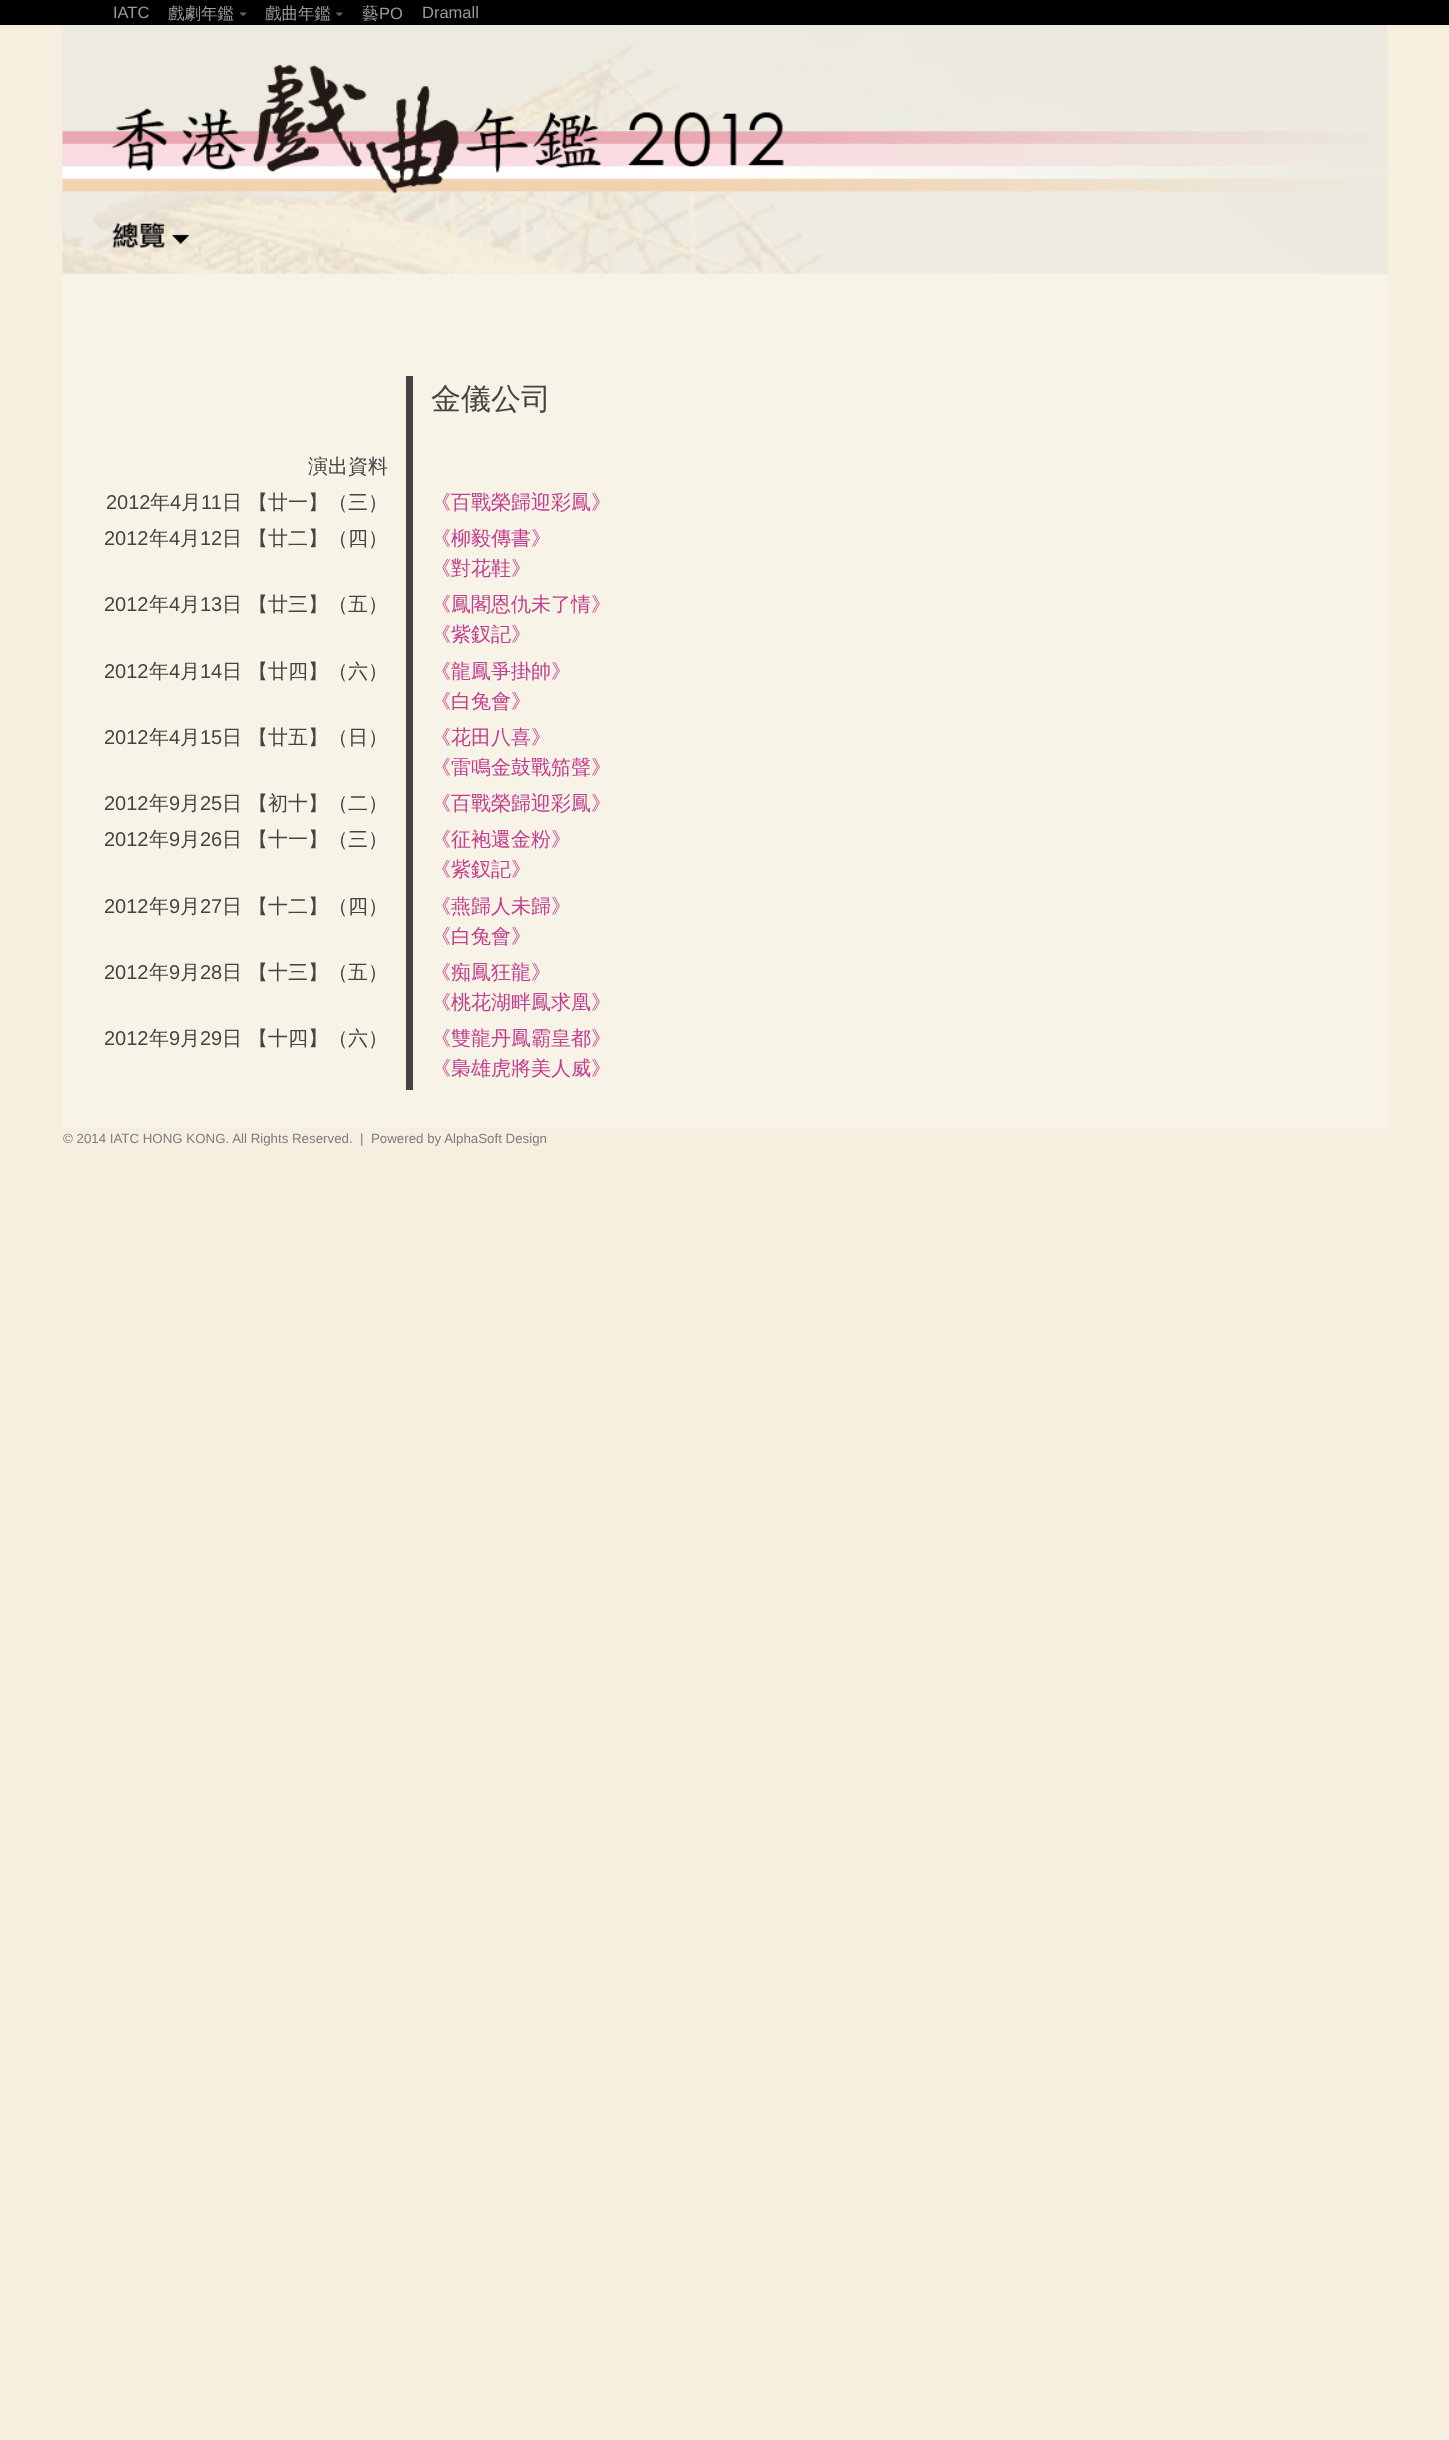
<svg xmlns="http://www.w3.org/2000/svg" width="1449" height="2440">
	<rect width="100%" height="100%" fill="#F6EFDF" />
	<rect x="0" y="0" width="1449" height="25" fill="#000000" />
	<text x="113" y="18" font-family="Liberation Sans" font-size="16.5" fill="#999999">IATC</text>
	<text x="168" y="19" font-family="WenQuanYi Zen Hei" font-size="16.5" font-weight="500" fill="#999999">戲劇年鑑</text>
	<image x="240" y="12" width="7" height="5" href="assets/img1.png" />
	<text x="265" y="19" font-family="WenQuanYi Zen Hei" font-size="16.5" font-weight="500" fill="#999999">戲曲年鑑</text>
	<image x="336" y="12" width="7" height="5" href="assets/img2.png" />
	<text x="362" y="19" font-family="WenQuanYi Zen Hei" font-size="16.5" font-weight="500" fill="#999999">藝</text>
	<g font-family="Liberation Sans" font-size="16.5" fill="#999999">
		<text x="379" y="19">PO</text>
		<text x="422" y="18">Dramall</text>
	</g>
	<rect x="62" y="273" width="1326" height="855" fill="#FBF7EE" />
	<image x="62" y="25" width="1326" height="249" href="assets/img3.png" />
	<rect x="63" y="274" width="1325" height="854" fill="#F8F3E7" />
	<rect x="406" y="376" width="7" height="714" fill="#444444" />
	<text x="431" y="409" font-family="WenQuanYi Zen Hei" font-size="30" font-weight="500" fill="#444444">金儀公司</text>
	<text x="308" y="473" font-family="WenQuanYi Zen Hei" font-size="20" font-weight="500" fill="#444444">演出資料</text>
	<text x="106" y="509" font-family="Liberation Sans" font-size="20" fill="#444444">2012</text>
	<text x="150" y="509" font-family="WenQuanYi Zen Hei" font-size="20" font-weight="500" fill="#444444">年</text>
	<text x="170" y="509" font-family="Liberation Sans" font-size="20" fill="#444444">4</text>
	<text x="181" y="509" font-family="WenQuanYi Zen Hei" font-size="20" font-weight="500" fill="#444444">月</text>
	<text x="201" y="509" font-family="Liberation Sans" font-size="20" fill="#444444">11</text>
	<text x="222" y="509" font-family="WenQuanYi Zen Hei" font-size="20" font-weight="500" fill="#444444">日 【廿一】（三）</text>
	<text x="431" y="509" font-family="WenQuanYi Zen Hei" font-size="20" font-weight="500" fill="#C33C8E">《百戰榮歸迎彩鳳》</text>
	<text x="104" y="545" font-family="Liberation Sans" font-size="20" fill="#444444">2012</text>
	<text x="149" y="545" font-family="WenQuanYi Zen Hei" font-size="20" font-weight="500" fill="#444444">年</text>
	<text x="169" y="545" font-family="Liberation Sans" font-size="20" fill="#444444">4</text>
	<text x="180" y="545" font-family="WenQuanYi Zen Hei" font-size="20" font-weight="500" fill="#444444">月</text>
	<text x="200" y="545" font-family="Liberation Sans" font-size="20" fill="#444444">12</text>
	<text x="222" y="545" font-family="WenQuanYi Zen Hei" font-size="20" font-weight="500" fill="#444444">日 【廿二】（四）</text>
	<g font-family="WenQuanYi Zen Hei" font-size="20" font-weight="500" fill="#C33C8E">
		<text x="431" y="545">《柳毅傳書》</text>
		<text x="431" y="575">《對花鞋》</text>
	</g>
	<text x="104" y="611" font-family="Liberation Sans" font-size="20" fill="#444444">2012</text>
	<text x="149" y="611" font-family="WenQuanYi Zen Hei" font-size="20" font-weight="500" fill="#444444">年</text>
	<text x="169" y="611" font-family="Liberation Sans" font-size="20" fill="#444444">4</text>
	<text x="180" y="611" font-family="WenQuanYi Zen Hei" font-size="20" font-weight="500" fill="#444444">月</text>
	<text x="200" y="611" font-family="Liberation Sans" font-size="20" fill="#444444">13</text>
	<text x="222" y="611" font-family="WenQuanYi Zen Hei" font-size="20" font-weight="500" fill="#444444">日 【廿三】（五）</text>
	<g font-family="WenQuanYi Zen Hei" font-size="20" font-weight="500" fill="#C33C8E">
		<text x="431" y="611">《鳳閣恩仇未了情》</text>
		<text x="431" y="641">《紫釵記》</text>
	</g>
	<text x="104" y="678" font-family="Liberation Sans" font-size="20" fill="#444444">2012</text>
	<text x="149" y="678" font-family="WenQuanYi Zen Hei" font-size="20" font-weight="500" fill="#444444">年</text>
	<text x="169" y="678" font-family="Liberation Sans" font-size="20" fill="#444444">4</text>
	<text x="180" y="678" font-family="WenQuanYi Zen Hei" font-size="20" font-weight="500" fill="#444444">月</text>
	<text x="200" y="678" font-family="Liberation Sans" font-size="20" fill="#444444">14</text>
	<text x="222" y="678" font-family="WenQuanYi Zen Hei" font-size="20" font-weight="500" fill="#444444">日 【廿四】（六）</text>
	<g font-family="WenQuanYi Zen Hei" font-size="20" font-weight="500" fill="#C33C8E">
		<text x="431" y="678">《龍鳳爭掛帥》</text>
		<text x="431" y="708">《白兔會》</text>
	</g>
	<text x="104" y="744" font-family="Liberation Sans" font-size="20" fill="#444444">2012</text>
	<text x="149" y="744" font-family="WenQuanYi Zen Hei" font-size="20" font-weight="500" fill="#444444">年</text>
	<text x="169" y="744" font-family="Liberation Sans" font-size="20" fill="#444444">4</text>
	<text x="180" y="744" font-family="WenQuanYi Zen Hei" font-size="20" font-weight="500" fill="#444444">月</text>
	<text x="200" y="744" font-family="Liberation Sans" font-size="20" fill="#444444">15</text>
	<text x="222" y="744" font-family="WenQuanYi Zen Hei" font-size="20" font-weight="500" fill="#444444">日 【廿五】（日）</text>
	<g font-family="WenQuanYi Zen Hei" font-size="20" font-weight="500" fill="#C33C8E">
		<text x="431" y="744">《花田八喜》</text>
		<text x="431" y="774">《雷鳴金鼓戰笳聲》</text>
	</g>
	<text x="104" y="810" font-family="Liberation Sans" font-size="20" fill="#444444">2012</text>
	<text x="149" y="810" font-family="WenQuanYi Zen Hei" font-size="20" font-weight="500" fill="#444444">年</text>
	<text x="169" y="810" font-family="Liberation Sans" font-size="20" fill="#444444">9</text>
	<text x="180" y="810" font-family="WenQuanYi Zen Hei" font-size="20" font-weight="500" fill="#444444">月</text>
	<text x="200" y="810" font-family="Liberation Sans" font-size="20" fill="#444444">25</text>
	<text x="222" y="810" font-family="WenQuanYi Zen Hei" font-size="20" font-weight="500" fill="#444444">日 【初十】（二）</text>
	<text x="431" y="810" font-family="WenQuanYi Zen Hei" font-size="20" font-weight="500" fill="#C33C8E">《百戰榮歸迎彩鳳》</text>
	<text x="104" y="846" font-family="Liberation Sans" font-size="20" fill="#444444">2012</text>
	<text x="149" y="846" font-family="WenQuanYi Zen Hei" font-size="20" font-weight="500" fill="#444444">年</text>
	<text x="169" y="846" font-family="Liberation Sans" font-size="20" fill="#444444">9</text>
	<text x="180" y="846" font-family="WenQuanYi Zen Hei" font-size="20" font-weight="500" fill="#444444">月</text>
	<text x="200" y="846" font-family="Liberation Sans" font-size="20" fill="#444444">26</text>
	<text x="222" y="846" font-family="WenQuanYi Zen Hei" font-size="20" font-weight="500" fill="#444444">日 【十一】（三）</text>
	<g font-family="WenQuanYi Zen Hei" font-size="20" font-weight="500" fill="#C33C8E">
		<text x="431" y="846">《征袍還金粉》</text>
		<text x="431" y="876">《紫釵記》</text>
	</g>
	<text x="104" y="913" font-family="Liberation Sans" font-size="20" fill="#444444">2012</text>
	<text x="149" y="913" font-family="WenQuanYi Zen Hei" font-size="20" font-weight="500" fill="#444444">年</text>
	<text x="169" y="913" font-family="Liberation Sans" font-size="20" fill="#444444">9</text>
	<text x="180" y="913" font-family="WenQuanYi Zen Hei" font-size="20" font-weight="500" fill="#444444">月</text>
	<text x="200" y="913" font-family="Liberation Sans" font-size="20" fill="#444444">27</text>
	<text x="222" y="913" font-family="WenQuanYi Zen Hei" font-size="20" font-weight="500" fill="#444444">日 【十二】（四）</text>
	<g font-family="WenQuanYi Zen Hei" font-size="20" font-weight="500" fill="#C33C8E">
		<text x="431" y="913">《燕歸人未歸》</text>
		<text x="431" y="943">《白兔會》</text>
	</g>
	<text x="104" y="979" font-family="Liberation Sans" font-size="20" fill="#444444">2012</text>
	<text x="149" y="979" font-family="WenQuanYi Zen Hei" font-size="20" font-weight="500" fill="#444444">年</text>
	<text x="169" y="979" font-family="Liberation Sans" font-size="20" fill="#444444">9</text>
	<text x="180" y="979" font-family="WenQuanYi Zen Hei" font-size="20" font-weight="500" fill="#444444">月</text>
	<text x="200" y="979" font-family="Liberation Sans" font-size="20" fill="#444444">28</text>
	<text x="222" y="979" font-family="WenQuanYi Zen Hei" font-size="20" font-weight="500" fill="#444444">日 【十三】（五）</text>
	<g font-family="WenQuanYi Zen Hei" font-size="20" font-weight="500" fill="#C33C8E">
		<text x="431" y="979">《痴鳳狂龍》</text>
		<text x="431" y="1009">《桃花湖畔鳳求凰》</text>
	</g>
	<text x="104" y="1045" font-family="Liberation Sans" font-size="20" fill="#444444">2012</text>
	<text x="149" y="1045" font-family="WenQuanYi Zen Hei" font-size="20" font-weight="500" fill="#444444">年</text>
	<text x="169" y="1045" font-family="Liberation Sans" font-size="20" fill="#444444">9</text>
	<text x="180" y="1045" font-family="WenQuanYi Zen Hei" font-size="20" font-weight="500" fill="#444444">月</text>
	<text x="200" y="1045" font-family="Liberation Sans" font-size="20" fill="#444444">29</text>
	<text x="222" y="1045" font-family="WenQuanYi Zen Hei" font-size="20" font-weight="500" fill="#444444">日 【十四】（六）</text>
	<g font-family="WenQuanYi Zen Hei" font-size="20" font-weight="500" fill="#C33C8E">
		<text x="431" y="1045">《雙龍丹鳳霸皇都》</text>
		<text x="431" y="1075">《梟雄虎將美人威》</text>
	</g>
	<g font-family="Liberation Sans" font-size="13.3" fill="#7D7D7D">
		<text x="63" y="1143" xml:space="preserve">© 2014 IATC HONG KONG. All Rights Reserved.  |</text>
		<text x="371" y="1143">Powered by AlphaSoft Design</text>
	</g>
</svg>
